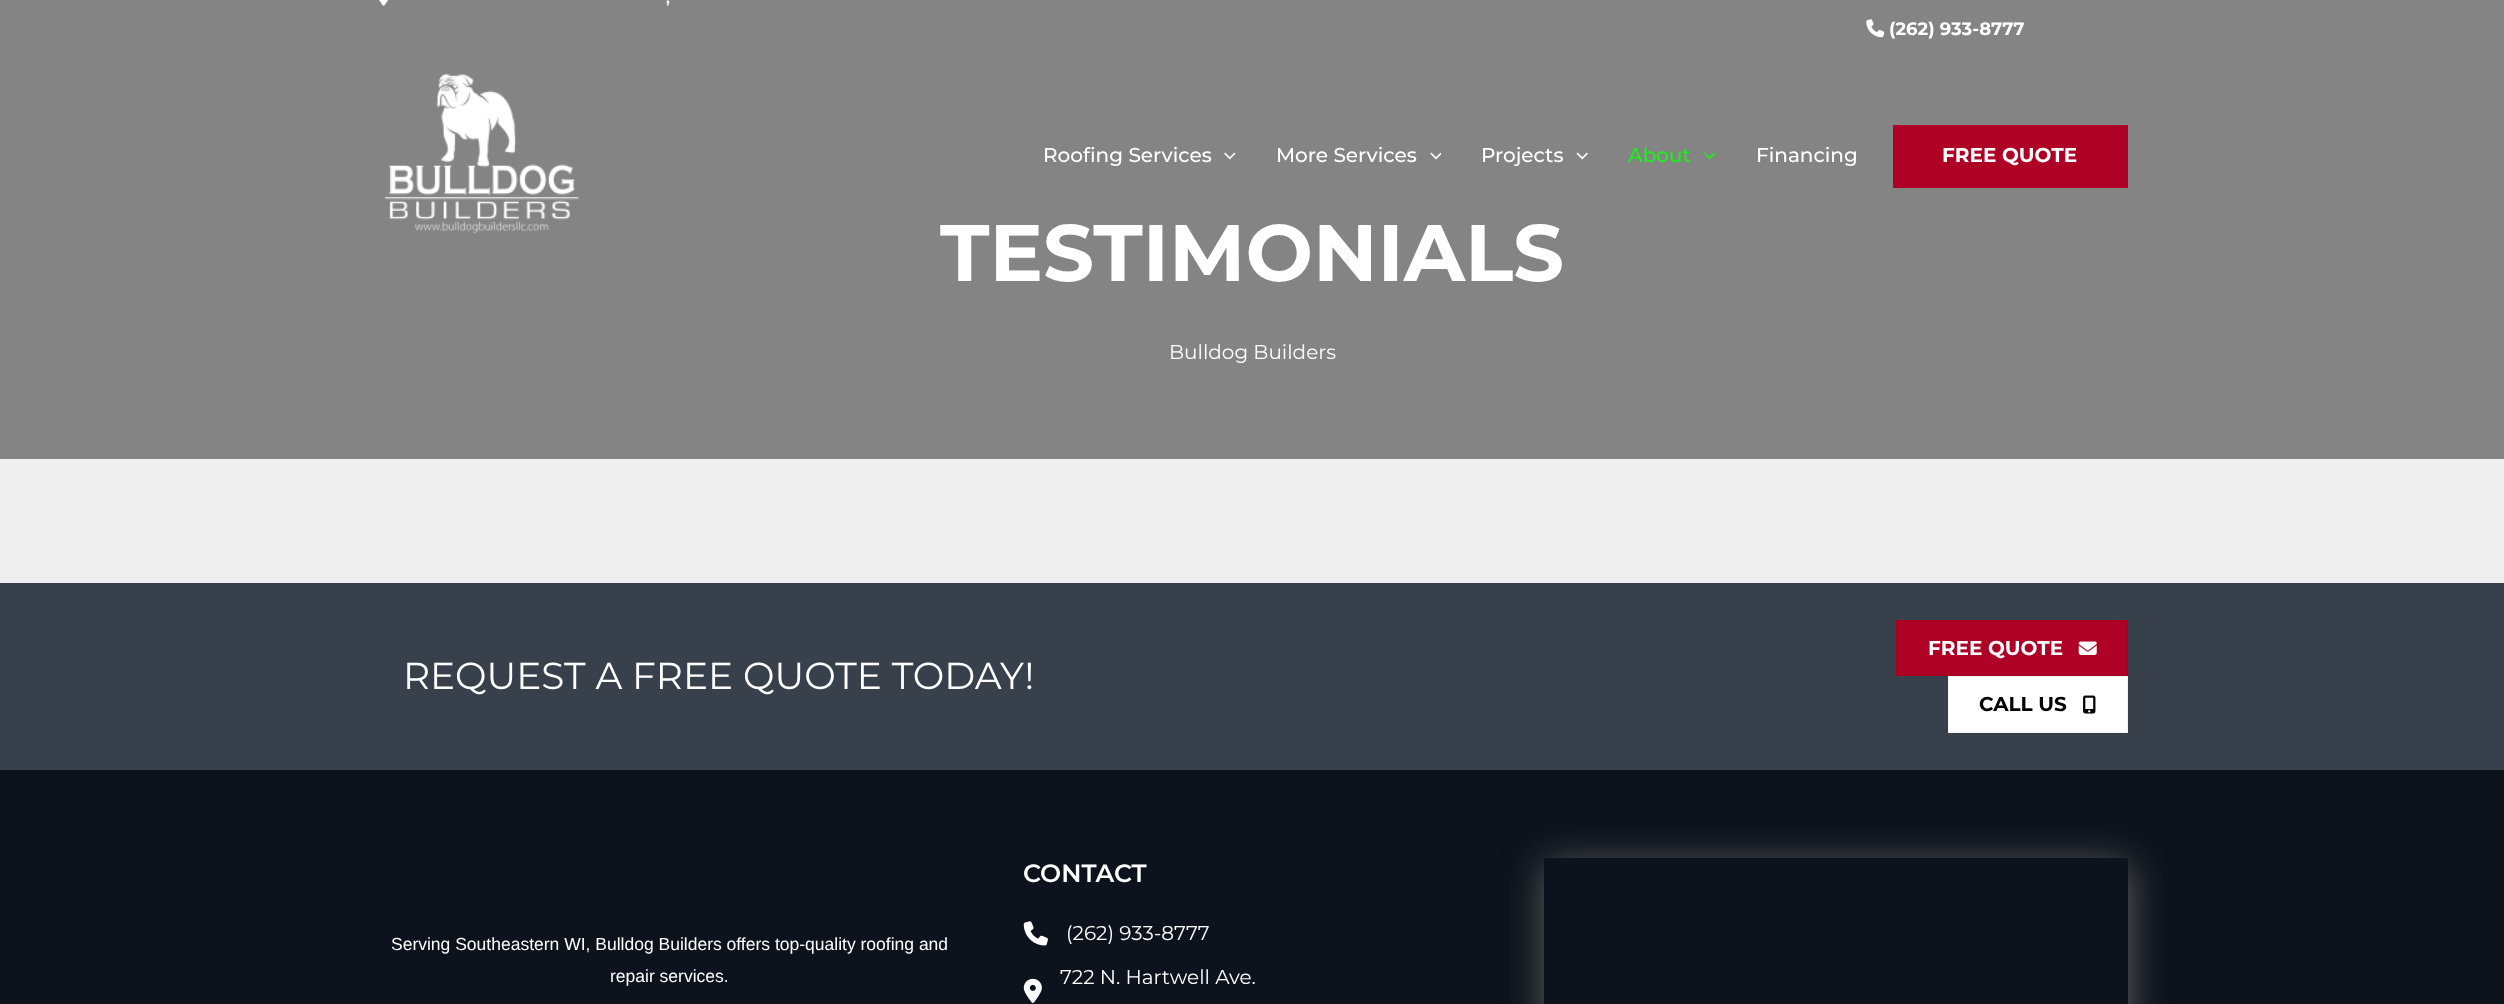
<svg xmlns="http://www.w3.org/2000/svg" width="2504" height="1004">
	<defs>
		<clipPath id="clip1"><path d="M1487 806H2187V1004H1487ZM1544 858H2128V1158H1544Z" clip-rule="evenodd" /></clipPath>
	</defs>
	<rect width="100%" height="100%" fill="#EFEFEF" />
	<rect x="0" y="0" width="2504" height="459" fill="#848484" />
	<image x="379" y="0" width="9" height="6" href="assets/img1.png" />
	<text x="666" y="3" font-family="Montserrat" font-size="16" font-weight="600" fill="#FFFFFF">,</text>
	<image x="1866" y="19" width="19" height="19" href="assets/img2.png" />
	<text x="1889" y="35" font-family="Montserrat" font-size="18" font-weight="700" fill="#FFFFFF">(262) 933-8777</text>
	<image x="384" y="73" width="195" height="161" href="assets/img3.png" />
	<text x="1043" y="162" font-family="Montserrat" font-size="20" font-weight="500" fill="#FFFFFF">Roofing Services</text>
	<image x="1224" y="152" width="12" height="8" href="assets/img4.png" />
	<text x="1276" y="162" font-family="Montserrat" font-size="20" font-weight="500" fill="#FFFFFF">More Services</text>
	<image x="1430" y="152" width="11" height="8" href="assets/img5.png" />
	<text x="1481" y="162" font-family="Montserrat" font-size="20" font-weight="500" fill="#FFFFFF">Projects</text>
	<image x="1576" y="152" width="12" height="8" href="assets/img6.png" />
	<text x="1628" y="162" font-family="Montserrat" font-size="20" font-weight="500" fill="#1AF11A">About</text>
	<image x="1704" y="152" width="12" height="8" href="assets/img7.png" />
	<text x="1756" y="162" font-family="Montserrat" font-size="20" font-weight="500" fill="#FFFFFF">Financing</text>
	<rect x="1893" y="125" width="235" height="63" fill="#AF0025" />
	<text x="1942" y="162" font-family="Montserrat" font-size="20" font-weight="700" fill="#FFFFFF">FREE QUOTE</text>
	<text x="940" y="281" font-family="Montserrat" font-size="80" font-weight="700" fill="#FFFFFF">TESTIMONIALS</text>
	<text x="1169" y="359" font-family="Montserrat" font-size="20" fill="#FFFFFF">Bulldog Builders</text>
	<rect x="0" y="583" width="2504" height="187" fill="#38404B" />
	<text x="403" y="689" font-family="Montserrat" font-size="37.5" fill="#FFFFFF">REQUEST A FREE QUOTE TODAY!</text>
	<rect x="1896.5" y="620.5" width="231" height="55" fill="#AF0025" stroke="#A30019" />
	<text x="1928" y="655" font-family="Montserrat" font-size="20" font-weight="700" fill="#FFFFFF">FREE QUOTE</text>
	<image x="2078" y="641" width="19" height="14" href="assets/img8.png" />
	<rect x="1948.5" y="676.5" width="179" height="56" fill="#FFFFFF" stroke="#F3F3F3" />
	<text x="1979" y="711" font-family="Montserrat" font-size="20" font-weight="700" fill="#000000">CALL US</text>
	<image x="2083" y="695" width="13" height="19" href="assets/img9.png" />
	<rect x="0" y="770" width="2504" height="234" fill="#0D131C" />
	<g font-family="Liberation Sans" font-size="17.5" fill="#FFFFFF">
		<text x="391" y="950">Serving Southeastern WI, Bulldog Builders offers top-quality roofing and</text>
		<text x="610" y="982">repair services.</text>
	</g>
	<text x="1023" y="882" font-family="Montserrat" font-size="25" font-weight="600" fill="#FFFFFF">CONTACT</text>
	<image x="1023" y="921" width="25" height="25" href="assets/img10.png" />
	<text x="1066" y="940" font-family="Montserrat" font-size="20" fill="#FFFFFF">(262) 933-8777</text>
	<image x="1023" y="978" width="19" height="25" href="assets/img11.png" />
	<text x="1060" y="984" font-family="Montserrat" font-size="20" fill="#FFFFFF">722 N. Hartwell Ave.</text>
	<g clip-path="url(#clip1)">
		<rect x="1545" y="864" width="584" height="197" fill="#636363" filter="blur(19px)" />
	</g>
</svg>
